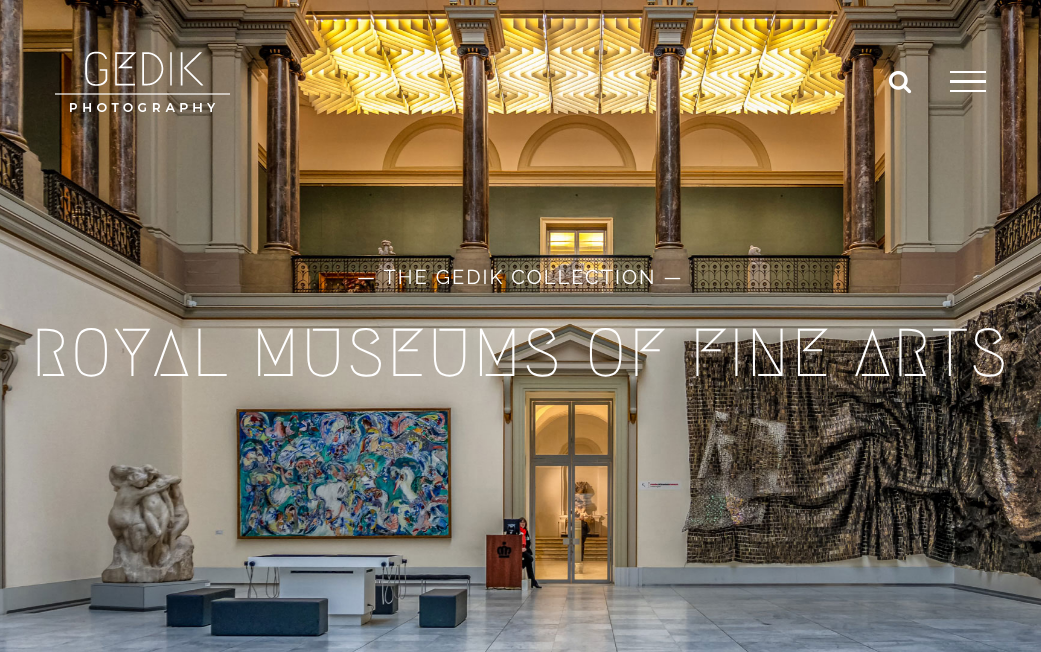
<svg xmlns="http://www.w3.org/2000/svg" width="1041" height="652">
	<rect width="100%" height="100%" fill="#FFFFFF" />
	<image x="0" y="0" width="1041" height="652" href="assets/img3.png" />
	<image x="55" y="51" width="175" height="61" href="assets/img1.png" />
	<image x="888" y="70" width="24" height="24" href="assets/img2.png" />
	<rect x="950" y="71" width="36" height="2" fill="#FFFFFF" />
	<rect x="950" y="80" width="36" height="3" fill="#FFFFFF" />
	<rect x="950" y="90" width="36" height="2" fill="#FFFFFF" />
	<text x="357" y="284" font-family="Raleway" font-size="20" font-weight="100" letter-spacing="2" fill="#FFFFFF">— THE GEDIK COLLECTION —</text>
	<text x="31" y="376" font-family="Megrim" font-size="67.5" font-weight="500" letter-spacing="2" fill="#FFFFFF">ROYAL MUSEUMS OF FINE ARTS</text>
</svg>
